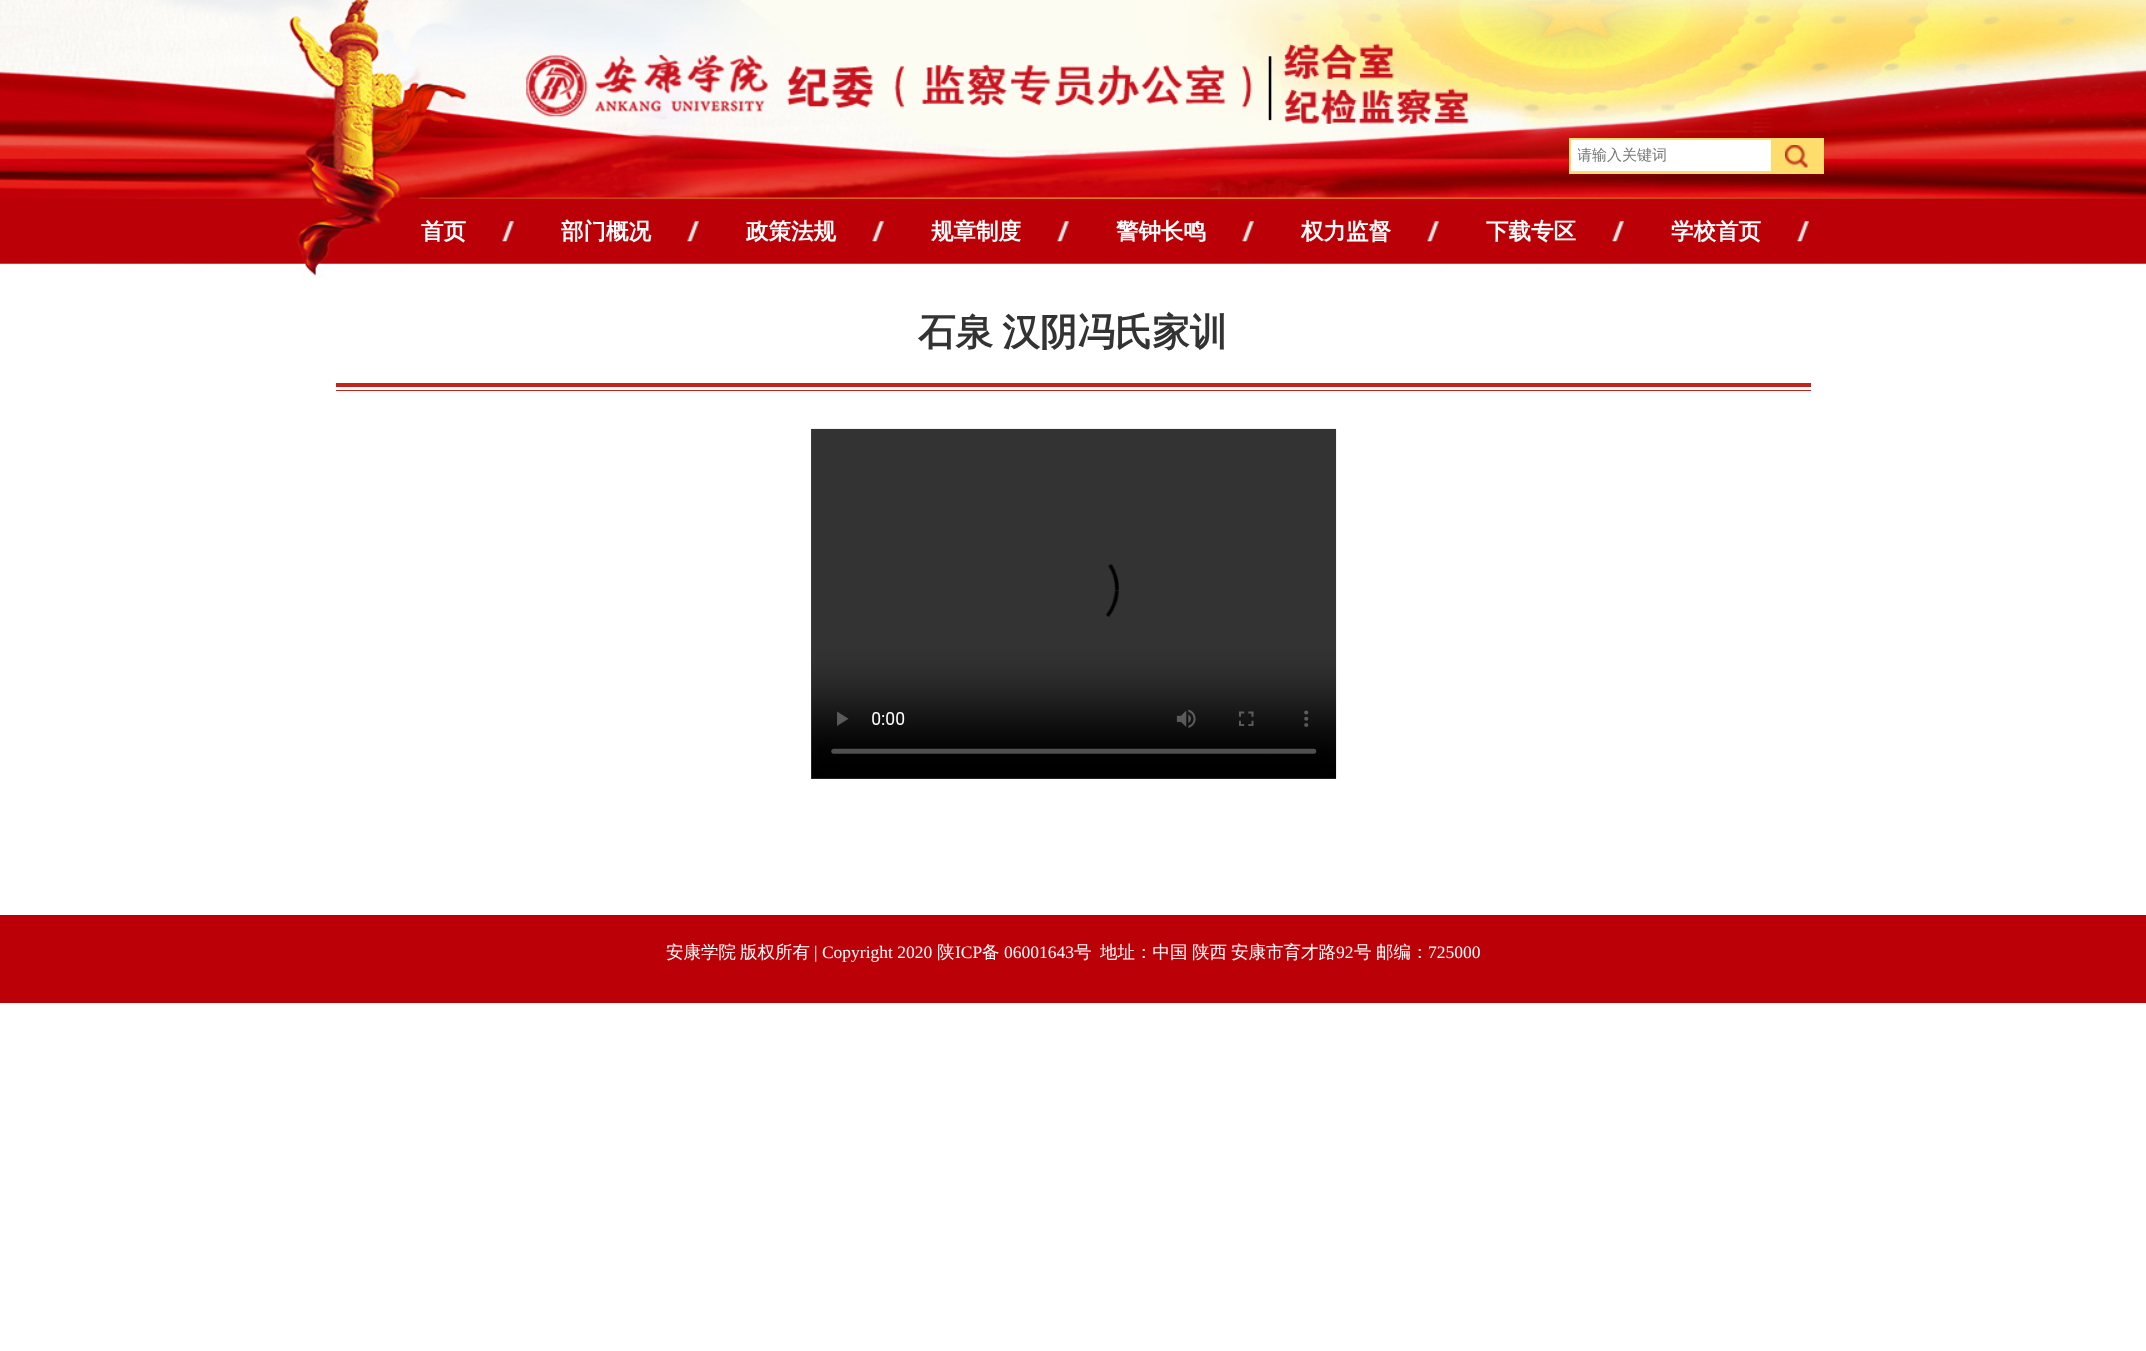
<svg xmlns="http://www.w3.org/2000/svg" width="2146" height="1351">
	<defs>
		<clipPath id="clip1"><rect x="1578" y="145" width="193" height="21" /></clipPath>
	</defs>
	<rect width="100%" height="100%" fill="#FFFFFF" />
	<image x="0" y="0" width="2146" height="278" href="assets/img1.png" />
	<image x="526" y="43" width="943" height="81" href="assets/img2.png" />
	<rect x="1570.5" y="139.5" width="252" height="33" fill="none" stroke="#FEDD6C" stroke-width="3" />
	<rect x="1571" y="140" width="200" height="31" fill="#FFFFFF" />
	<g clip-path="url(#clip1)">
		<text x="1577" y="160" font-family="WenQuanYi Zen Hei" font-size="15" font-weight="500" fill="#757575">请输入关键词</text>
	</g>
	<rect x="1771" y="141" width="50" height="30" fill="#FEDD6C" />
	<image x="1785" y="145" width="23" height="23" href="assets/img3.png" />
	<image x="502" y="221" width="12" height="21" href="assets/img4.png" />
	<text x="421" y="239" font-family="WenQuanYi Zen Hei" font-size="22.5" font-weight="700" fill="#FFFFFF">首页</text>
	<image x="687" y="221" width="12" height="21" href="assets/img4.png" />
	<text x="561" y="239" font-family="WenQuanYi Zen Hei" font-size="22.5" font-weight="700" fill="#FFFFFF">部门概况</text>
	<image x="872" y="221" width="12" height="21" href="assets/img4.png" />
	<text x="746" y="239" font-family="WenQuanYi Zen Hei" font-size="22.5" font-weight="700" fill="#FFFFFF">政策法规</text>
	<image x="1057" y="221" width="12" height="21" href="assets/img5.png" />
	<text x="931" y="239" font-family="WenQuanYi Zen Hei" font-size="22.5" font-weight="700" fill="#FFFFFF">规章制度</text>
	<image x="1242" y="221" width="12" height="21" href="assets/img4.png" />
	<text x="1116" y="239" font-family="WenQuanYi Zen Hei" font-size="22.5" font-weight="700" fill="#FFFFFF">警钟长鸣</text>
	<image x="1427" y="221" width="12" height="21" href="assets/img4.png" />
	<text x="1301" y="239" font-family="WenQuanYi Zen Hei" font-size="22.5" font-weight="700" fill="#FFFFFF">权力监督</text>
	<image x="1612" y="221" width="12" height="21" href="assets/img5.png" />
	<text x="1486" y="239" font-family="WenQuanYi Zen Hei" font-size="22.5" font-weight="700" fill="#FFFFFF">下载专区</text>
	<image x="1797" y="221" width="12" height="21" href="assets/img5.png" />
	<text x="1671" y="239" font-family="WenQuanYi Zen Hei" font-size="22.5" font-weight="700" fill="#FFFFFF">学校首页</text>
	<text x="918" y="345" word-spacing="-2" font-family="WenQuanYi Zen Hei" font-size="37.5" font-weight="700" fill="#333333">石泉 汉阴冯氏家训</text>
	<rect x="336" y="383" width="1475" height="4" fill="#C4221A" />
	<rect x="336" y="390" width="1475" height="1" fill="#C4221A" />
	<rect x="811" y="429" width="525" height="350" fill="#474747" />
	<image x="811" y="428" width="526" height="351" href="assets/img6.png" />
	<rect x="0" y="915" width="2146" height="88" fill="#BB0107" />
	<g font-family="WenQuanYi Zen Hei" font-size="17.5" font-weight="500" fill="#FFFFFF">
		<text x="666" y="958">安康学院</text>
		<text x="740" y="958">版权所有</text>
	</g>
	<text x="814" y="958" font-family="Liberation Serif" font-size="17.5" fill="#FFFFFF">| Copyright 2020</text>
	<text x="937" y="958" font-family="WenQuanYi Zen Hei" font-size="17.5" font-weight="500" fill="#FFFFFF">陕</text>
	<text x="955" y="958" font-family="Liberation Serif" font-size="17.5" fill="#FFFFFF">ICP</text>
	<text x="982" y="958" font-family="WenQuanYi Zen Hei" font-size="17.5" font-weight="500" fill="#FFFFFF">备</text>
	<text x="1004" y="958" font-family="Liberation Serif" font-size="17.5" fill="#FFFFFF">06001643</text>
	<g font-family="WenQuanYi Zen Hei" font-size="17.5" font-weight="500" fill="#FFFFFF">
		<text x="1074" y="958">号</text>
		<text x="1100" y="958">地址：中国</text>
		<text x="1192" y="958">陕西</text>
		<text x="1231" y="958">安康市育才路</text>
	</g>
	<text x="1336" y="958" font-family="Liberation Serif" font-size="17.5" fill="#FFFFFF">92</text>
	<g font-family="WenQuanYi Zen Hei" font-size="17.5" font-weight="500" fill="#FFFFFF">
		<text x="1354" y="958">号</text>
		<text x="1376" y="958">邮编：</text>
	</g>
	<text x="1428" y="958" font-family="Liberation Serif" font-size="17.5" fill="#FFFFFF">725000</text>
</svg>
